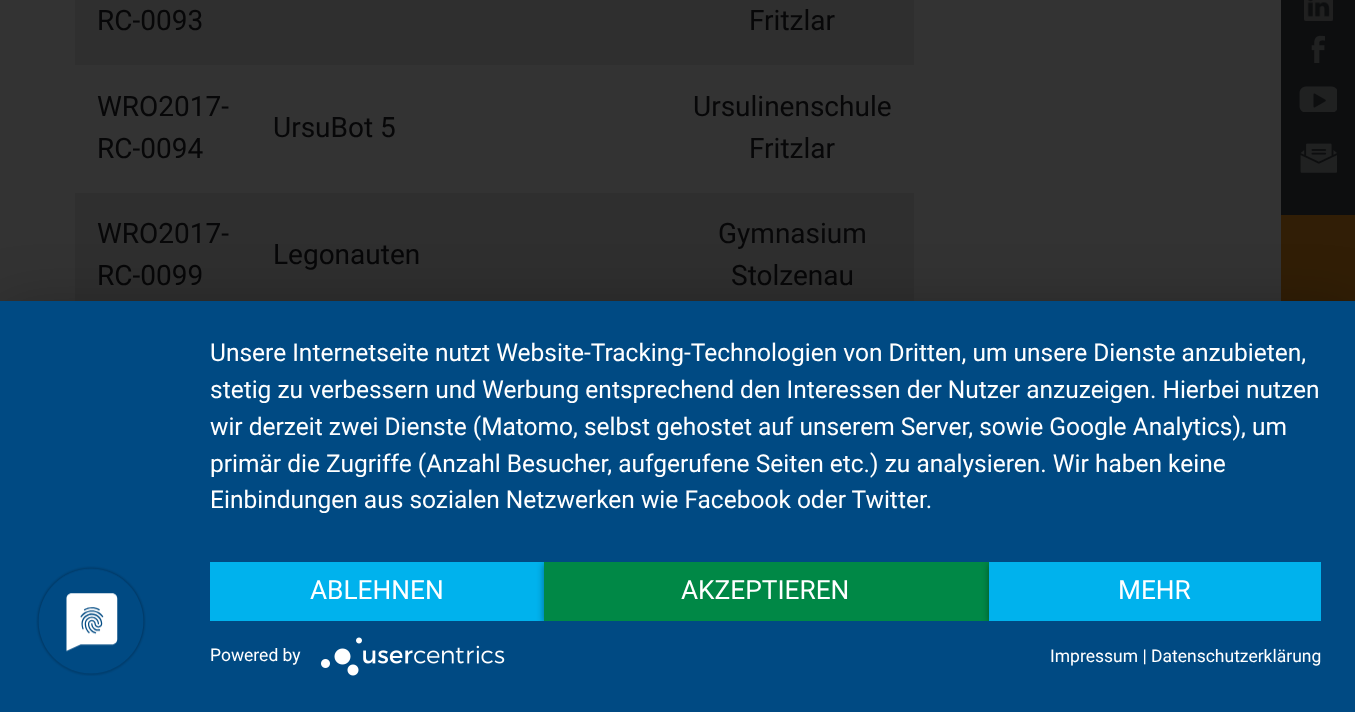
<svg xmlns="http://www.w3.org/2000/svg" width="1355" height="712">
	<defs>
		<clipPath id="clip1"><rect x="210" y="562" width="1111" height="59" /></clipPath>
	</defs>
	<rect width="100%" height="100%" fill="#333333" />
	<rect x="75" y="0" width="839" height="65" fill="#2F2F2F" />
	<g font-family="Roboto" font-size="28" fill="#070708">
		<text x="97" y="30">RC-0093</text>
		<text x="749" y="30">Fritzlar</text>
		<text x="97" y="116">WRO2017-</text>
		<text x="97" y="158">RC-0094</text>
		<text x="273" y="137">UrsuBot 5</text>
		<text x="693" y="116">Ursulinenschule</text>
		<text x="749" y="158">Fritzlar</text>
	</g>
	<rect x="75" y="193" width="839" height="108" fill="#2F2F2F" />
	<g font-family="Roboto" font-size="28" fill="#070708">
		<text x="97" y="243">WRO2017-</text>
		<text x="97" y="285">RC-0099</text>
		<text x="273" y="264">Legonauten</text>
		<text x="718" y="243">Gymnasium</text>
		<text x="731" y="285">Stolzenau</text>
	</g>
	<path d="M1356-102V215H1281V-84C1281-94 1289-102 1298-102Z" fill="#0D0E0F" />
	<image x="1304" y="0" width="29" height="21" href="assets/img1.png" />
	<image x="1311" y="35" width="14" height="28" href="assets/img2.png" />
	<image x="1299" y="86" width="38" height="26" href="assets/img3.png" />
	<image x="1300" y="143" width="38" height="30" href="assets/img4.png" />
	<path d="M1281 215H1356V392H1298C1289 392 1281 384 1281 374Z" fill="#311E06" />
	<rect x="0" y="312" width="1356" height="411" fill="#000000" fill-opacity="0.3" filter="blur(31.5px)" />
	<rect x="0" y="301" width="1355" height="411" fill="#004A83" />
	<image x="36" y="566" width="110" height="110" href="assets/img5.png" />
	<g font-family="Roboto" font-size="24.5" fill="#FFFFFF">
		<text x="210" y="361">Unsere Internetseite nutzt Website-Tracking-Technologien von Dritten, um unsere Dienste anzubieten,</text>
		<text x="210" y="398">stetig zu verbessern und Werbung entsprechend den Interessen der Nutzer anzuzeigen. Hierbei nutzen</text>
		<text x="210" y="435">wir derzeit zwei Dienste (Matomo, selbst gehostet auf unserem Server, sowie Google Analytics), um</text>
		<text x="210" y="472">primär die Zugriffe (Anzahl Besucher, aufgerufene Seiten etc.) zu analysieren. Wir haben keine</text>
		<text x="210" y="508">Einbindungen aus sozialen Netzwerken wie Facebook oder Twitter.</text>
	</g>
	<rect x="210" y="562" width="334" height="59" fill="#00B2ED" />
	<text x="310" y="599" font-family="Roboto" font-size="26.25" fill="#FFFFFF">ABLEHNEN</text>
	<g clip-path="url(#clip1)">
		<rect x="544" y="564" width="445" height="59" fill="#000000" fill-opacity="0.4" filter="blur(3.5px)" />
	</g>
	<rect x="544" y="562" width="445" height="59" fill="#008846" />
	<text x="681" y="599" font-family="Roboto" font-size="26.25" fill="#FFFFFF">AKZEPTIEREN</text>
	<g clip-path="url(#clip1)">
		<rect x="989" y="564" width="332" height="59" fill="#000000" fill-opacity="0.4" filter="blur(3.5px)" />
	</g>
	<rect x="989" y="562" width="332" height="59" fill="#00B2ED" />
	<text x="1118" y="599" font-family="Roboto" font-size="26.25" fill="#FFFFFF">MEHR</text>
	<text x="210" y="661" font-family="Roboto" font-size="17.5" fill="#FFFFFF">Powered by</text>
	<image x="321" y="637" width="184" height="39" href="assets/img6.png" />
	<text x="1050" y="662" font-family="Roboto" font-size="17.5" fill="#FFFFFF">Impressum | Datenschutzerklärung</text>
</svg>
